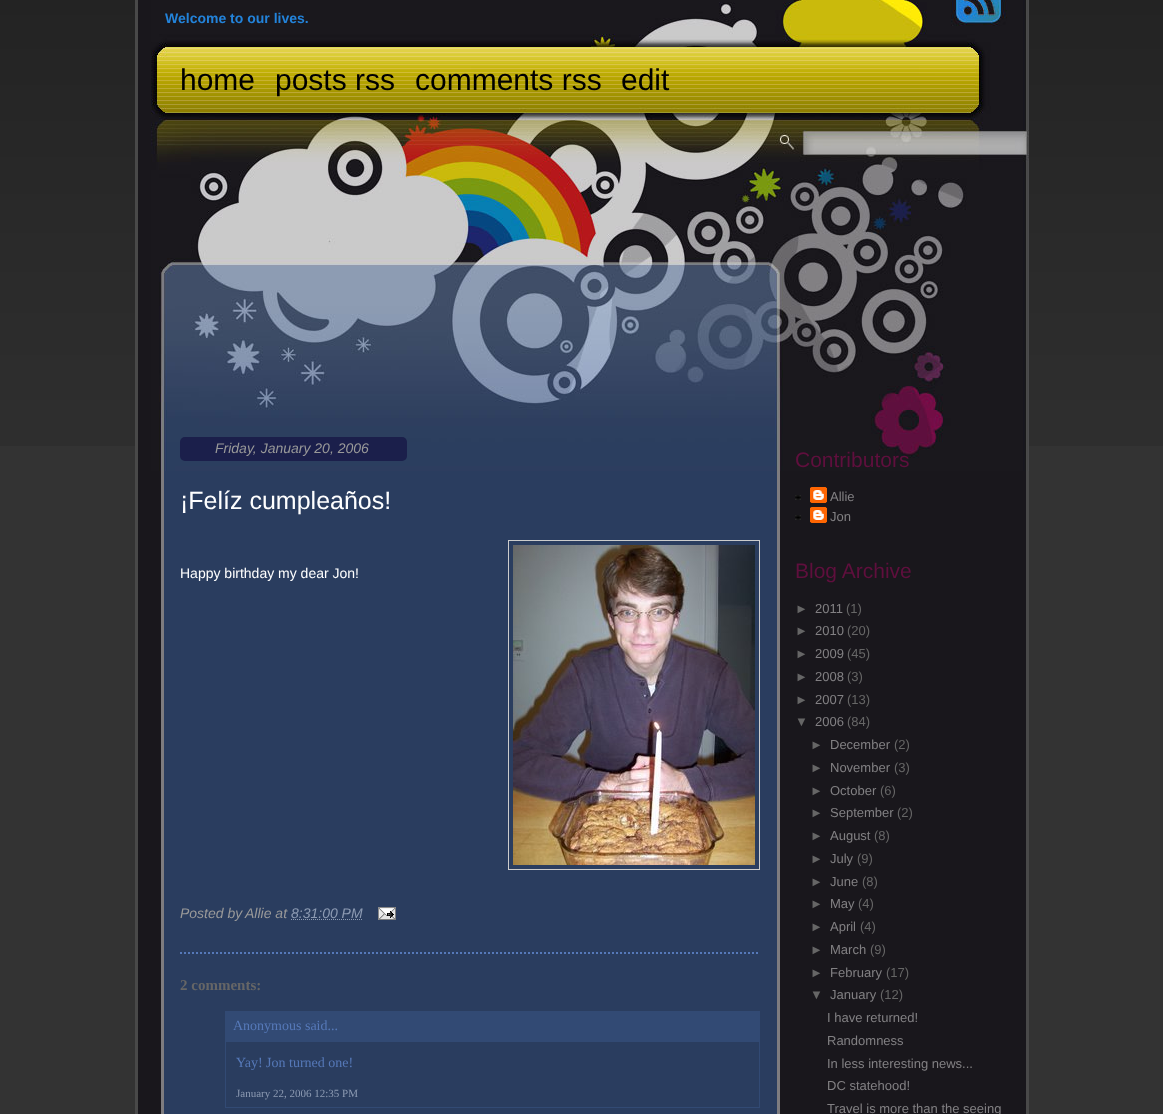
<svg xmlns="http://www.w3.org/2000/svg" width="1163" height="1114">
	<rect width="100%" height="100%" fill="#333333" />
	<image x="0" y="0" width="1163" height="446" href="assets/img1.png" />
	<image x="135" y="0" width="894" height="1114" href="assets/img2.png" />
	<image x="151" y="0" width="878" height="471" href="assets/img3.png" />
	<text x="165" y="23" font-family="Liberation Sans" font-size="14" font-weight="700" fill="#2383DA">Welcome to our lives.</text>
	<g font-family="Liberation Sans" font-size="30" fill="#000000">
		<text x="180" y="90">home</text>
		<text x="275" y="90">posts rss</text>
		<text x="415" y="90">comments rss</text>
		<text x="621" y="90">edit</text>
	</g>
	<rect x="180" y="437" width="227" height="24" rx="5" fill="#1B1F4B" />
	<text x="215" y="453" font-family="Liberation Sans" font-size="14" font-style="italic" fill="#999999">Friday, January 20, 2006</text>
	<path d="M180 953H760" fill="none" stroke="#5679B9" stroke-width="2" stroke-dasharray="2 2" />
	<text x="180" y="509" font-family="Liberation Sans" font-size="25" fill="#FFFFFF">¡Felíz cumpleaños!</text>
	<text x="180" y="578" font-family="Liberation Sans" font-size="14" fill="#FFFFFF">Happy birthday my dear Jon!</text>
	<rect x="508.5" y="540.5" width="251" height="329" fill="none" stroke="#CCCCCC" />
	<image x="513" y="545" width="242" height="320" href="assets/img4.png" />
	<g font-family="Liberation Sans" font-size="14" font-style="italic" fill="#999999">
		<text x="180" y="918">Posted by</text>
		<text x="245" y="918">Allie at</text>
	</g>
	<text x="291" y="918" font-family="Liberation Sans" font-size="14" font-style="italic" fill="#8D9BB3">8:31:00 PM</text>
	<path d="M291 919.5H362.5" fill="none" stroke="#8D9BB3" stroke-dasharray="1 1" />
	<image x="378" y="907" width="18" height="13" href="assets/img5.png" />
	<text x="180" y="990" font-family="Liberation Serif" font-size="15" font-weight="700" fill="#666666">2 comments:</text>
	<rect x="225" y="1011" width="535" height="31" fill="#324A74" />
	<text x="233" y="1030" font-family="Liberation Serif" font-size="14" fill="#5679B9">Anonymous said...</text>
	<rect x="759" y="1042" width="1" height="66" fill="#324A74" />
	<rect x="225" y="1042" width="1" height="47" fill="#324A74" />
	<text x="236" y="1067" font-family="Liberation Serif" font-size="14" fill="#5679B9">Yay! Jon turned one!</text>
	<rect x="225" y="1107" width="535" height="1" fill="#324A74" />
	<rect x="225" y="1086" width="1" height="22" fill="#324A74" />
	<text x="236" y="1097" font-family="Liberation Serif" font-size="11" fill="#8D9BB3">January 22, 2006 12:35 PM</text>
	<text x="795" y="467" font-family="Liberation Sans" font-size="21" fill="#5F0F3D">Contributors</text>
	<image x="795" y="495" width="6" height="5" href="assets/img6.png" />
	<image x="810" y="487" width="17" height="16" href="assets/img7.png" />
	<text x="830" y="501" font-family="Liberation Sans" font-size="13" fill="#828083">Allie</text>
	<image x="795" y="515" width="6" height="5" href="assets/img6.png" />
	<image x="810" y="507" width="17" height="16" href="assets/img7.png" />
	<text x="830" y="521" font-family="Liberation Sans" font-size="13" fill="#828083">Jon</text>
	<text x="795" y="578" font-family="Liberation Sans" font-size="21" fill="#5F0F3D">Blog Archive</text>
	<text x="795" y="613" font-family="Liberation Sans" font-size="13" fill="#666666">►</text>
	<text x="815" y="613" font-family="Liberation Sans" font-size="13" fill="#828083">2011</text>
	<g font-family="Liberation Sans" font-size="13" fill="#666666">
		<text x="846" y="613">(1)</text>
		<text x="795" y="635">►</text>
	</g>
	<text x="815" y="635" font-family="Liberation Sans" font-size="13" fill="#828083">2010</text>
	<g font-family="Liberation Sans" font-size="13" fill="#666666">
		<text x="847" y="635">(20)</text>
		<text x="795" y="658">►</text>
	</g>
	<text x="815" y="658" font-family="Liberation Sans" font-size="13" fill="#828083">2009</text>
	<g font-family="Liberation Sans" font-size="13" fill="#666666">
		<text x="847" y="658">(45)</text>
		<text x="795" y="681">►</text>
	</g>
	<text x="815" y="681" font-family="Liberation Sans" font-size="13" fill="#828083">2008</text>
	<g font-family="Liberation Sans" font-size="13" fill="#666666">
		<text x="847" y="681">(3)</text>
		<text x="795" y="704">►</text>
	</g>
	<text x="815" y="704" font-family="Liberation Sans" font-size="13" fill="#828083">2007</text>
	<g font-family="Liberation Sans" font-size="13" fill="#666666">
		<text x="847" y="704">(13)</text>
		<text x="795" y="726">▼</text>
	</g>
	<text x="815" y="726" font-family="Liberation Sans" font-size="13" fill="#828083">2006</text>
	<g font-family="Liberation Sans" font-size="13" fill="#666666">
		<text x="847" y="726">(84)</text>
		<text x="810" y="749">►</text>
	</g>
	<text x="830" y="749" font-family="Liberation Sans" font-size="13" fill="#828083">December</text>
	<g font-family="Liberation Sans" font-size="13" fill="#666666">
		<text x="894" y="749">(2)</text>
		<text x="810" y="772">►</text>
	</g>
	<text x="830" y="772" font-family="Liberation Sans" font-size="13" fill="#828083">November</text>
	<g font-family="Liberation Sans" font-size="13" fill="#666666">
		<text x="894" y="772">(3)</text>
		<text x="810" y="795">►</text>
	</g>
	<text x="830" y="795" font-family="Liberation Sans" font-size="13" fill="#828083">October</text>
	<g font-family="Liberation Sans" font-size="13" fill="#666666">
		<text x="880" y="795">(6)</text>
		<text x="810" y="817">►</text>
	</g>
	<text x="830" y="817" font-family="Liberation Sans" font-size="13" fill="#828083">September</text>
	<g font-family="Liberation Sans" font-size="13" fill="#666666">
		<text x="897" y="817">(2)</text>
		<text x="810" y="840">►</text>
	</g>
	<text x="830" y="840" font-family="Liberation Sans" font-size="13" fill="#828083">August</text>
	<g font-family="Liberation Sans" font-size="13" fill="#666666">
		<text x="874" y="840">(8)</text>
		<text x="810" y="863">►</text>
	</g>
	<text x="830" y="863" font-family="Liberation Sans" font-size="13" fill="#828083">July</text>
	<g font-family="Liberation Sans" font-size="13" fill="#666666">
		<text x="857" y="863">(9)</text>
		<text x="810" y="886">►</text>
	</g>
	<text x="830" y="886" font-family="Liberation Sans" font-size="13" fill="#828083">June</text>
	<g font-family="Liberation Sans" font-size="13" fill="#666666">
		<text x="862" y="886">(8)</text>
		<text x="810" y="908">►</text>
	</g>
	<text x="830" y="908" font-family="Liberation Sans" font-size="13" fill="#828083">May</text>
	<g font-family="Liberation Sans" font-size="13" fill="#666666">
		<text x="858" y="908">(4)</text>
		<text x="810" y="931">►</text>
	</g>
	<text x="830" y="931" font-family="Liberation Sans" font-size="13" fill="#828083">April</text>
	<g font-family="Liberation Sans" font-size="13" fill="#666666">
		<text x="860" y="931">(4)</text>
		<text x="810" y="954">►</text>
	</g>
	<text x="830" y="954" font-family="Liberation Sans" font-size="13" fill="#828083">March</text>
	<g font-family="Liberation Sans" font-size="13" fill="#666666">
		<text x="870" y="954">(9)</text>
		<text x="810" y="977">►</text>
	</g>
	<text x="830" y="977" font-family="Liberation Sans" font-size="13" fill="#828083">February</text>
	<g font-family="Liberation Sans" font-size="13" fill="#666666">
		<text x="886" y="977">(17)</text>
		<text x="810" y="999">▼</text>
	</g>
	<text x="830" y="999" font-family="Liberation Sans" font-size="13" fill="#828083">January</text>
	<text x="880" y="999" font-family="Liberation Sans" font-size="13" fill="#666666">(12)</text>
	<g font-family="Liberation Sans" font-size="13" fill="#828083">
		<text x="827" y="1022">I have returned!</text>
		<text x="827" y="1045">Randomness</text>
		<text x="827" y="1068">In less interesting news...</text>
		<text x="827" y="1090">DC statehood!</text>
		<text x="827" y="1113">Travel is more than the seeing</text>
	</g>
</svg>
